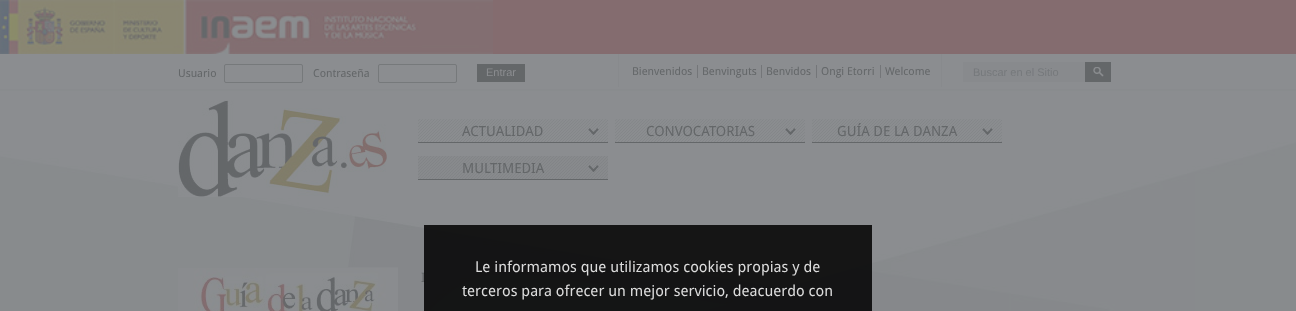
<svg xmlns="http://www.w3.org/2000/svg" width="1296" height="311">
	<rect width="100%" height="100%" fill="#FFFFFF" />
	<image x="0" y="54" width="1296" height="257" href="assets/img1.png" />
	<rect x="493" y="0" width="803" height="54" fill="#846C6F" />
	<image x="0" y="0" width="493" height="54" href="assets/img2.png" />
	<image x="0" y="89" width="1296" height="2" href="assets/img3.png" />
	<text x="178" y="77" font-family="Droid Sans" font-size="11" fill="#646769">Usuario</text>
	<rect x="224.5" y="64.5" width="78" height="18" rx="1.5" fill="none" stroke="#76797B" />
	<text x="313" y="77" font-family="Droid Sans" font-size="11" fill="#646769">Contraseña</text>
	<rect x="378.5" y="64.5" width="78" height="18" rx="1.5" fill="none" stroke="#76797B" />
	<rect x="477" y="64" width="48" height="18" fill="#646769" />
	<text x="486" y="76" font-family="Liberation Sans" font-size="11" fill="#8B8D90">Entrar</text>
	<rect x="941" y="54" width="1" height="33" fill="#888A8D" />
	<rect x="618" y="54" width="1" height="33" fill="#888A8D" />
	<text x="632" y="75" font-family="Droid Sans" font-size="11" fill="#646769">Bienvenidos</text>
	<rect x="697" y="65" width="1" height="13" fill="#747679" />
	<text x="702" y="75" font-family="Droid Sans" font-size="11" fill="#646769">Benvinguts</text>
	<rect x="761" y="65" width="1" height="13" fill="#747679" />
	<text x="766" y="75" font-family="Droid Sans" font-size="11" fill="#646769">Benvidos</text>
	<rect x="816" y="65" width="1" height="13" fill="#747679" />
	<text x="821" y="75" font-family="Droid Sans" font-size="11" fill="#646769">Ongi Etorri</text>
	<rect x="880" y="65" width="1" height="13" fill="#747679" />
	<text x="885" y="75" font-family="Droid Sans" font-size="11" fill="#646769">Welcome</text>
	<rect x="963" y="62" width="122" height="20" fill="#888A8D" />
	<text x="973" y="76" font-family="Liberation Sans" font-size="11" fill="#76797C">Buscar en el Sitio</text>
	<rect x="1085" y="62" width="26" height="20" fill="#646769" />
	<image x="1093" y="67" width="11" height="10" href="assets/img4.png" />
	<image x="178" y="100" width="209" height="97" href="assets/img5.png" />
	<image x="418" y="119" width="190" height="23" href="assets/img6.png" />
	<rect x="418" y="142" width="190" height="1" fill="#646769" />
	<image x="588" y="128" width="11" height="7" href="assets/img7.png" />
	<text x="462" y="136" font-family="Droid Sans" font-size="14" fill="#646769">ACTUALIDAD</text>
	<image x="615" y="119" width="190" height="23" href="assets/img6.png" />
	<rect x="615" y="142" width="190" height="1" fill="#646769" />
	<image x="785" y="128" width="11" height="7" href="assets/img7.png" />
	<text x="646" y="136" font-family="Droid Sans" font-size="14" fill="#646769">CONVOCATORIAS</text>
	<image x="812" y="119" width="190" height="23" href="assets/img6.png" />
	<rect x="812" y="142" width="190" height="1" fill="#646769" />
	<image x="982" y="128" width="11" height="7" href="assets/img7.png" />
	<text x="837" y="136" font-family="Droid Sans" font-size="14" fill="#646769">GUÍA DE LA DANZA</text>
	<image x="418" y="156" width="190" height="23" href="assets/img8.png" />
	<rect x="418" y="179" width="190" height="1" fill="#646769" />
	<image x="588" y="165" width="11" height="7" href="assets/img9.png" />
	<text x="462" y="173" font-family="Droid Sans" font-size="14" fill="#646769">MULTIMEDIA</text>
	<rect x="348" y="267" width="50" height="1" fill="#888A8D" />
	<image x="178" y="268" width="220" height="43" href="assets/img10.png" />
	<text x="421" y="282" font-family="Droid Sans" font-size="13" fill="#646769">I</text>
	<rect x="424" y="225" width="448" height="86" fill="#000000" fill-opacity="0.85" />
	<g font-family="Droid Sans" font-size="15" fill="#DCDCDC">
		<text x="475" y="272">Le informamos que utilizamos cookies propias y de</text>
		<text x="462" y="296">terceros para ofrecer un mejor servicio, deacuerdo con</text>
	</g>
</svg>
